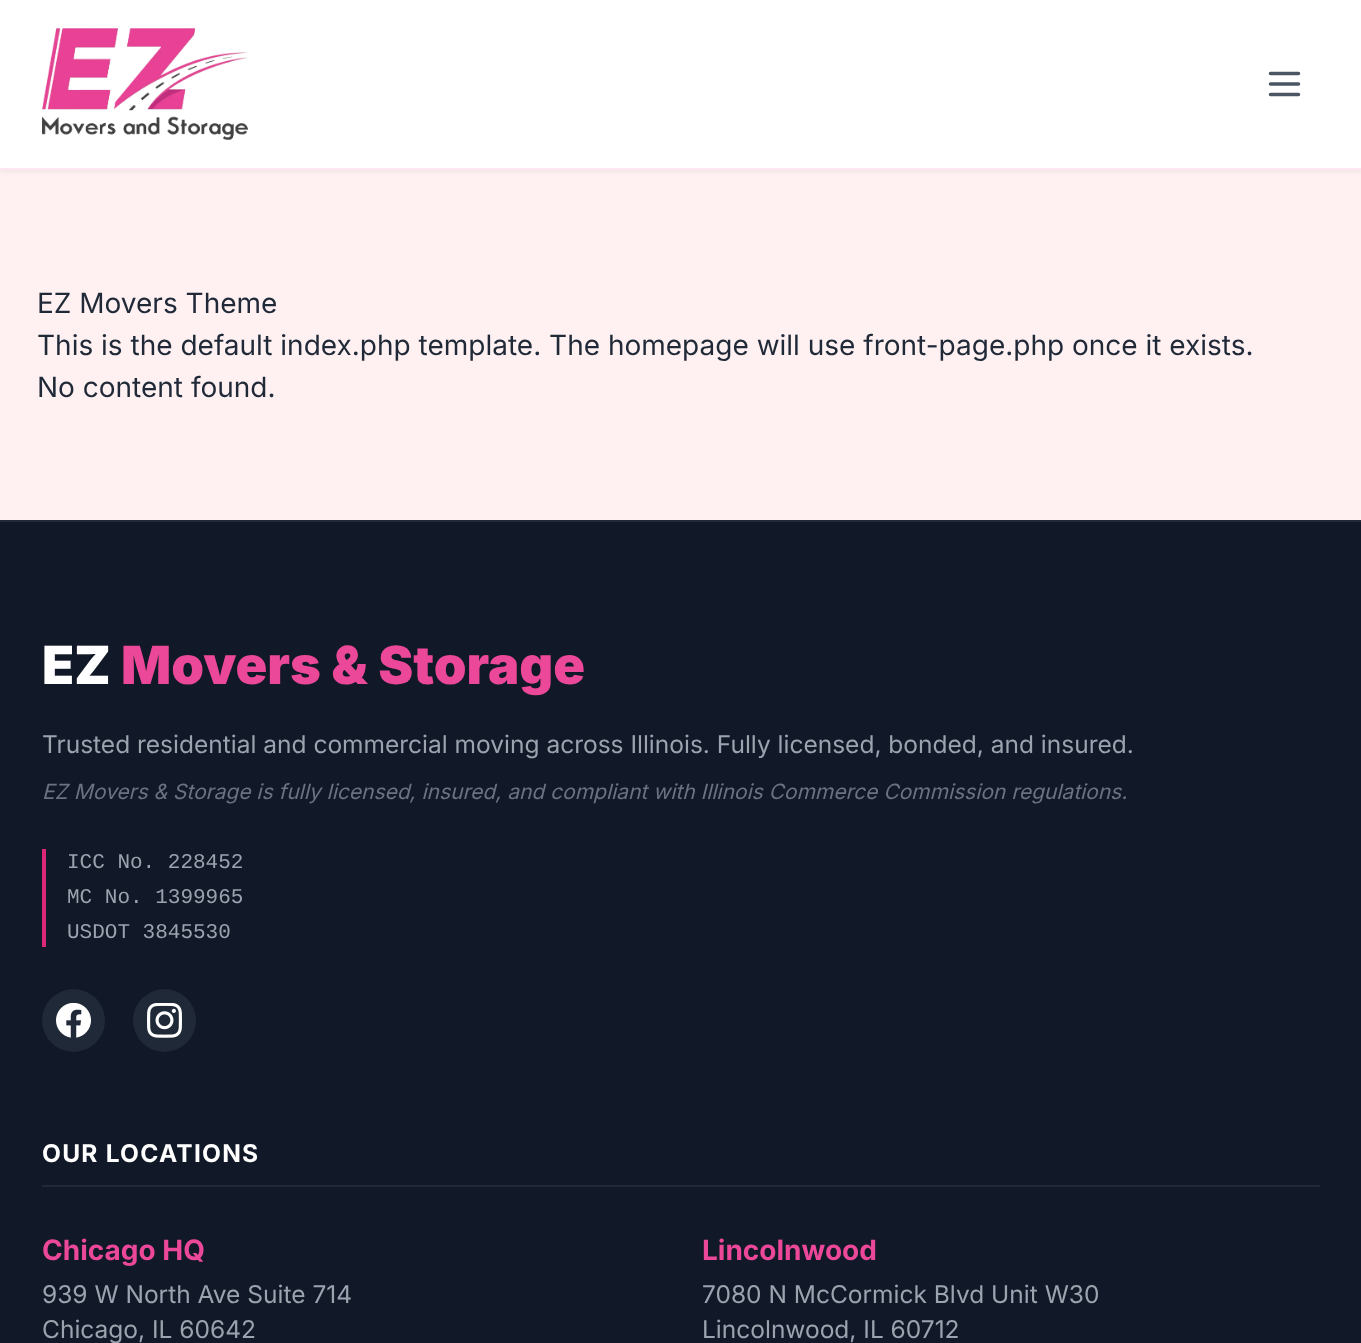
<svg xmlns="http://www.w3.org/2000/svg" width="1361" height="1343">
	<rect width="100%" height="100%" fill="#FFF1F2" />
	<rect x="0" y="2" width="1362" height="170" fill="#000000" fill-opacity="0.05" filter="blur(2px)" />
	<rect x="0" y="0" width="1361" height="168" fill="#FFFFFF" />
	<rect x="0" y="168" width="1361" height="2" fill="#FCE7F3" />
	<image x="42" y="28" width="206" height="112" href="assets/img1.png" />
	<path d="M1270.5 73.5H1298.5M1270.5 84H1298.5M1270.5 94.5H1298.5" fill="none" stroke="#4B5563" stroke-width="3.5" stroke-linecap="round" stroke-linejoin="round" />
	<g font-family="Inter" font-size="28" fill="#1F2937">
		<text x="37" y="313">EZ Movers Theme</text>
		<text x="37" y="355">This is the default index.php template. The homepage will use front-page.php once it exists.</text>
		<text x="37" y="397">No content found.</text>
	</g>
	<rect x="0" y="522" width="1361" height="821" fill="#111827" />
	<rect x="0" y="520" width="1361" height="2" fill="#1F2937" />
	<text x="42" y="684" font-family="Inter" font-size="52.5" font-weight="900" fill="#FFFFFF">EZ</text>
	<text x="121" y="684" font-family="Inter" font-size="52.5" font-weight="900" fill="#EC4899">Movers &amp; Storage</text>
	<text x="42" y="753" font-family="Inter" font-size="24.5" fill="#9CA3AF">Trusted residential and commercial moving across Illinois. Fully licensed, bonded, and insured.</text>
	<text x="42" y="799" font-family="Inter" font-size="21" font-style="italic" fill="#6B7280">EZ Movers &amp; Storage is fully licensed, insured, and compliant with Illinois Commerce Commission regulations.</text>
	<rect x="42" y="849" width="4" height="98" fill="#DB2777" />
	<g font-family="Liberation Mono" font-size="21" fill="#9CA3AF">
		<text x="67" y="868">ICC No. 228452</text>
		<text x="67" y="903">MC No. 1399965</text>
		<text x="67" y="938">USDOT 3845530</text>
	</g>
	<circle cx="73.5" cy="1020.5" r="31.5" fill="#1F2937" />
	<image x="56" y="1003" width="35" height="35" href="assets/img2.png" />
	<circle cx="164.5" cy="1020.5" r="31.5" fill="#1F2937" />
	<image x="147" y="1003" width="35" height="35" href="assets/img3.png" />
	<rect x="42" y="1185" width="1278" height="2" fill="#1F2937" />
	<text x="42" y="1162" font-family="Inter" font-size="24.5" font-weight="700" letter-spacing="1.25" fill="#FFFFFF">OUR LOCATIONS</text>
	<text x="42" y="1260" font-family="Inter" font-size="28" font-weight="700" fill="#EC4899">Chicago HQ</text>
	<g font-family="Inter" font-size="24.5" fill="#9CA3AF">
		<text x="42" y="1303">939 W North Ave Suite 714</text>
		<text x="42" y="1338">Chicago, IL 60642</text>
	</g>
	<text x="702" y="1260" font-family="Inter" font-size="28" font-weight="700" fill="#EC4899">Lincolnwood</text>
	<g font-family="Inter" font-size="24.5" fill="#9CA3AF">
		<text x="702" y="1303">7080 N McCormick Blvd Unit W30</text>
		<text x="702" y="1338">Lincolnwood, IL 60712</text>
	</g>
</svg>
